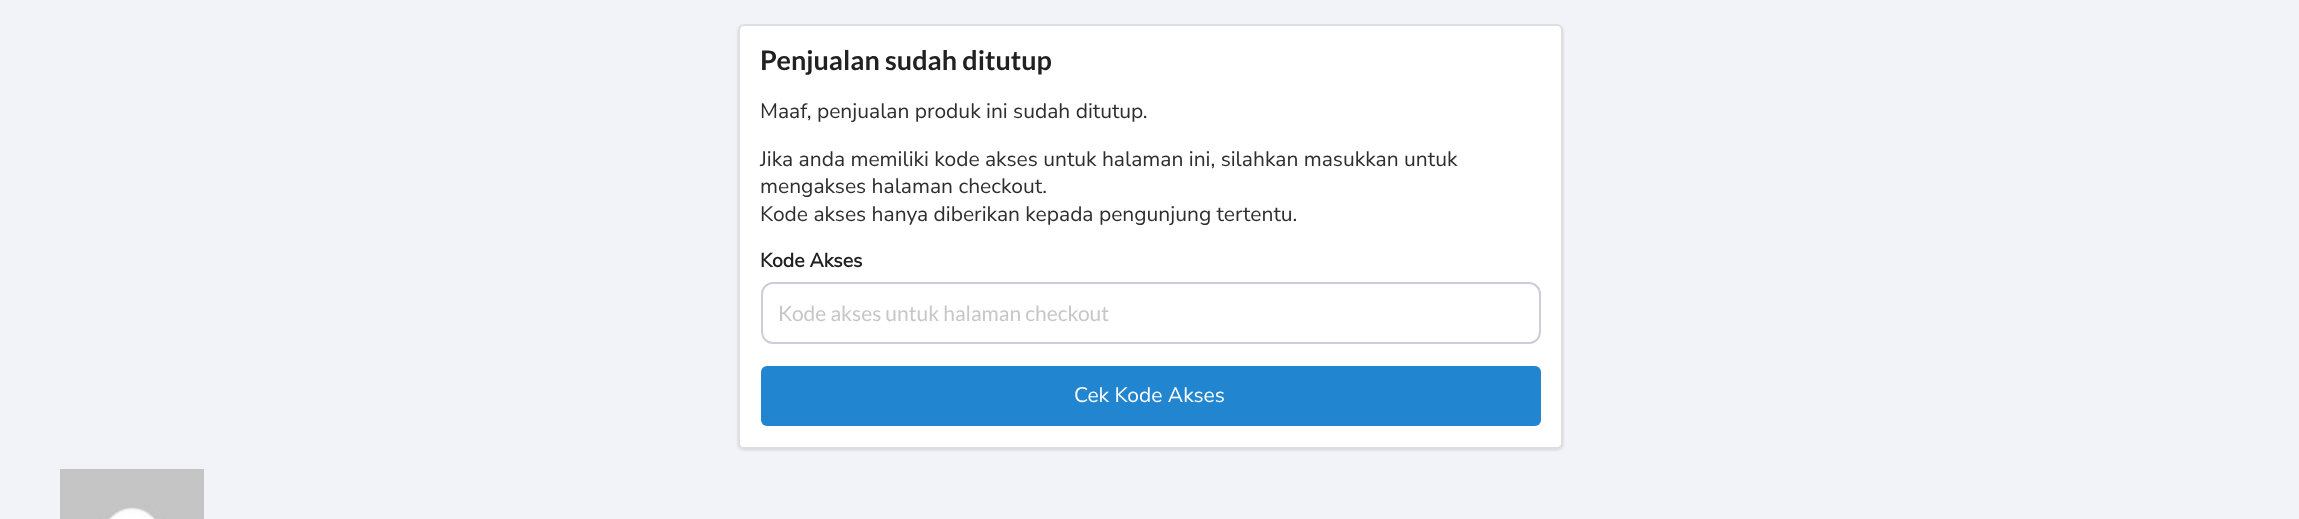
<svg xmlns="http://www.w3.org/2000/svg" width="2299" height="519">
	<rect width="100%" height="100%" fill="#F2F3F8" />
	<rect x="738" y="26" width="825" height="424" rx="6" fill="#222426" fill-opacity="0.15" filter="blur(1.5px)" />
	<rect x="738" y="24" width="825" height="425" rx="6" fill="#FFFFFF" />
	<rect x="739" y="25" width="823" height="423" rx="5" fill="none" stroke="#222426" stroke-opacity="0.15" stroke-width="2" />
	<text x="760" y="70" font-family="Lato" font-size="27" font-weight="700" fill="#212121">Penjualan sudah ditutup</text>
	<g font-family="Nunito Sans" font-size="21" font-weight="200" fill="#2E2E31">
		<text x="760" y="118">Maaf, penjualan produk ini sudah ditutup.</text>
		<text x="760" y="166">Jika anda memiliki kode akses untuk halaman ini, silahkan masukkan untuk</text>
		<text x="760" y="193">mengakses halaman checkout.</text>
		<text x="760" y="221">Kode akses hanya diberikan kepada pengunjung tertentu.</text>
	</g>
	<text x="760" y="267" font-family="Nunito Sans" font-size="19.5" font-weight="700" fill="#212121">Kode Akses</text>
	<rect x="762" y="283" width="778" height="60" rx="11" fill="none" stroke="#CBCEDA" stroke-width="2" />
	<text x="778" y="321" font-family="Lato" font-size="21" fill="#C7C7C7">Kode akses untuk halaman checkout</text>
	<rect x="761" y="366" width="780" height="60" rx="6" fill="#2185D0" />
	<text x="1074" y="402" font-family="Nunito Sans" font-size="21" font-weight="200" fill="#FFFFFF">Cek Kode Akses</text>
	<image x="60" y="469" width="144" height="50" href="assets/img1.png" />
</svg>
